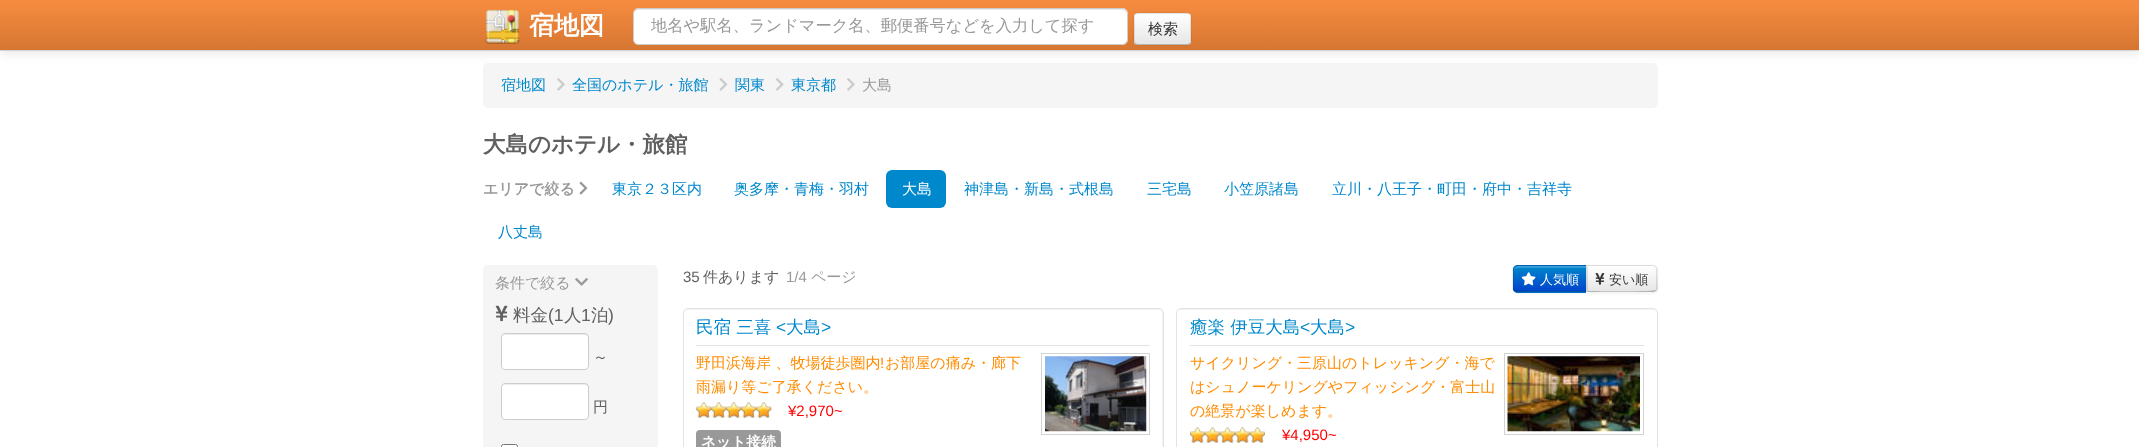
<svg xmlns="http://www.w3.org/2000/svg" width="2139" height="447">
	<defs>
		<linearGradient id="g1" gradientUnits="userSpaceOnUse" x1="1070" y1="0" x2="1070" y2="50"><stop offset="0" stop-color="#F78C40" /><stop offset="1" stop-color="#D67632" /></linearGradient>
		<clipPath id="clip1"><rect x="1134" y="13" width="57" height="32" rx="4" /></clipPath>
		<linearGradient id="g2" gradientUnits="userSpaceOnUse" x1="1163" y1="14" x2="1163" y2="44"><stop offset="0" stop-color="#FFFFFF" /><stop offset="1" stop-color="#E6E6E6" /></linearGradient>
		<clipPath id="clip2"><path d="M1518 265H1588V293H1518C1515 293 1513 291 1513 288V270C1513 267 1515 265 1518 265Z" /></clipPath>
		<linearGradient id="g3" gradientUnits="userSpaceOnUse" x1="1550" y1="266" x2="1550" y2="291"><stop offset="0" stop-color="#0088CC" /><stop offset="1" stop-color="#0044CC" /></linearGradient>
		<clipPath id="clip3"><path d="M1586 265H1653C1656 265 1658 267 1658 270V288C1658 291 1656 293 1653 293H1586Z" /></clipPath>
		<linearGradient id="g4" gradientUnits="userSpaceOnUse" x1="1622" y1="266" x2="1622" y2="291"><stop offset="0" stop-color="#FFFFFF" /><stop offset="1" stop-color="#E6E6E6" /></linearGradient>
	</defs>
	<rect width="100%" height="100%" fill="#FFFFFF" />
	<rect x="483" y="63" width="1175" height="45" rx="5" fill="#F5F5F5" />
	<rect x="0" y="1" width="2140" height="52" fill="#000000" fill-opacity="0.1" filter="blur(6px)" />
	<rect x="0" y="0" width="2139" height="50" fill="url(#g1)" />
	<rect x="0" y="50" width="2139" height="1" fill="#D4D4D4" />
	<image x="485" y="9" width="35" height="35" href="assets/img1.png" />
	<text x="529" y="34" font-family="WenQuanYi Zen Hei" font-size="25" font-weight="700" fill="#FFFFFF">宿地図</text>
	<rect x="633" y="8" width="495" height="37" rx="6" fill="#FFFFFF" />
	<path d="M639 10H1121C1124 10 1126 12 1126 15V14C1126 11 1124 9 1121 9H639C636 9 634 11 634 14V15C634 12 636 10 639 10Z" fill="#ECECEC" />
	<rect x="633.5" y="8.5" width="494" height="36" rx="5.5" fill="none" stroke="#CCCCCC" />
	<text x="651" y="31" font-family="WenQuanYi Zen Hei" font-size="16.25" font-weight="500" fill="#999999">地名や駅名、ランドマーク名、郵便番号などを入力して探す</text>
	<rect x="1134" y="14" width="57" height="32" rx="4" fill="#000000" fill-opacity="0.05" filter="blur(1px)" />
	<rect x="1134" y="13" width="57" height="32" rx="4" fill="#F5F5F5" />
	<g clip-path="url(#clip1)">
		<rect x="1134" y="14" width="57" height="30" fill="url(#g2)" />
	</g>
	<path d="M1138 15H1188C1189 15 1190 16 1190 18C1190 12 1185 14 1179 14H1146C1140 14 1135 12 1135 18C1135 16 1136 15 1138 15Z" fill="#FFFFFF" />
	<path d="M1189.5 43.5L1188 44.5H1137L1135.5 43.5" fill="none" stroke="#B3B3B3" stroke-width="1.2" />
	<path d="M1135.5 43.5C1133 41.5 1134.5 31.5 1134.5 29C1134.5 13 1131 13 1146 13H1179C1194 13 1190.5 13 1190.5 29C1190.5 31.5 1192 41.5 1189.5 43.5" fill="none" stroke="#000000" stroke-opacity="0.1" stroke-width="1.2" />
	<text x="1148" y="34" font-family="WenQuanYi Zen Hei" font-size="15" font-weight="500" fill="#333333">検索</text>
	<text x="501" y="90" font-family="WenQuanYi Zen Hei" font-size="15" font-weight="500" fill="#0088CC">宿地図</text>
	<image x="557" y="78" width="8" height="13" href="assets/img2.png" />
	<text x="572" y="90" font-family="WenQuanYi Zen Hei" font-size="15" font-weight="500" fill="#0088CC">全国のホテル・旅館</text>
	<image x="719" y="78" width="9" height="13" href="assets/img3.png" />
	<text x="735" y="90" font-family="WenQuanYi Zen Hei" font-size="15" font-weight="500" fill="#0088CC">関東</text>
	<image x="776" y="78" width="8" height="13" href="assets/img4.png" />
	<text x="791" y="90" font-family="WenQuanYi Zen Hei" font-size="15" font-weight="500" fill="#0088CC">東京都</text>
	<image x="847" y="78" width="8" height="13" href="assets/img2.png" />
	<text x="862" y="90" font-family="WenQuanYi Zen Hei" font-size="15" font-weight="500" fill="#999999">大島</text>
	<text x="483" y="152" font-family="WenQuanYi Zen Hei" font-size="22.5" font-weight="700" fill="#606060">大島のホテル・旅館</text>
	<text x="483" y="194" font-family="WenQuanYi Zen Hei" font-size="15" font-weight="700" fill="#999999">エリアで絞る</text>
	<image x="579" y="181" width="9" height="14" href="assets/img5.png" />
	<g font-family="WenQuanYi Zen Hei" font-size="15" font-weight="500" fill="#0088CC">
		<text x="612" y="194">東京２３区内</text>
		<text x="734" y="194">奥多摩・青梅・羽村</text>
	</g>
	<rect x="886" y="170" width="60" height="38" rx="6" fill="#0088CC" />
	<text x="902" y="194" font-family="WenQuanYi Zen Hei" font-size="15" font-weight="500" fill="#FFFFFF">大島</text>
	<g font-family="WenQuanYi Zen Hei" font-size="15" font-weight="500" fill="#0088CC">
		<text x="964" y="194">神津島・新島・式根島</text>
		<text x="1147" y="194">三宅島</text>
		<text x="1224" y="194">小笠原諸島</text>
		<text x="1332" y="194">立川・八王子・町田・府中・吉祥寺</text>
		<text x="498" y="237">八丈島</text>
	</g>
	<rect x="483" y="265" width="175" height="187" rx="5" fill="#F5F5F5" />
	<text x="495" y="288" font-family="WenQuanYi Zen Hei" font-size="15" font-weight="500" fill="#999999">条件で絞る</text>
	<image x="575" y="278" width="13" height="8" href="assets/img6.png" />
	<image x="495" y="305" width="13" height="17" href="assets/img7.png" />
	<text x="513" y="321" font-family="WenQuanYi Zen Hei" font-size="17.5" font-weight="500" fill="#606060">料金</text>
	<text x="548" y="321" font-family="Liberation Sans" font-size="17.5" fill="#606060">(1</text>
	<text x="564" y="321" font-family="WenQuanYi Zen Hei" font-size="17.5" font-weight="500" fill="#606060">人</text>
	<text x="581" y="321" font-family="Liberation Sans" font-size="17.5" fill="#606060">1</text>
	<text x="591" y="321" font-family="WenQuanYi Zen Hei" font-size="17.5" font-weight="500" fill="#606060">泊</text>
	<text x="608" y="321" font-family="Liberation Sans" font-size="17.5" fill="#606060">)</text>
	<rect x="501" y="333" width="88" height="37" rx="4" fill="#FFFFFF" />
	<path d="M505 335H585C586 335 588 336 588 338V336C588 335 587 334 586 334H506C504 334 503 335 503 336Z" fill="#ECECEC" />
	<rect x="501.5" y="333.5" width="87" height="36" rx="3.5" fill="none" stroke="#CCCCCC" />
	<text x="593" y="362" font-family="WenQuanYi Zen Hei" font-size="15" font-weight="500" fill="#606060">～</text>
	<rect x="501" y="383" width="88" height="37" rx="4" fill="#FFFFFF" />
	<path d="M505 385H585C586 385 588 386 588 388V386C588 385 587 384 586 384H506C504 384 503 385 503 386Z" fill="#ECECEC" />
	<rect x="501.5" y="383.5" width="87" height="36" rx="3.5" fill="none" stroke="#CCCCCC" />
	<text x="593" y="412" font-family="WenQuanYi Zen Hei" font-size="15" font-weight="500" fill="#606060">円</text>
	<rect x="501.5" y="444.5" width="16" height="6" rx="2" fill="#FFFFFF" stroke="#767676" />
	<text x="683" y="282" font-family="Liberation Sans" font-size="15" fill="#606060">35</text>
	<text x="703" y="282" font-family="WenQuanYi Zen Hei" font-size="15" font-weight="500" fill="#606060">件あります</text>
	<text x="786" y="282" font-family="Liberation Sans" font-size="15" fill="#999999">1/4</text>
	<text x="811" y="282" font-family="WenQuanYi Zen Hei" font-size="15" font-weight="500" fill="#999999">ページ</text>
	<rect x="1513" y="266" width="75" height="28" rx="5" fill="#000000" fill-opacity="0.05" filter="blur(1px)" />
	<path d="M1518 265H1588V293H1518C1515 293 1513 291 1513 288V270C1513 267 1515 265 1518 265Z" fill="#006DCC" />
	<g clip-path="url(#clip2)">
		<rect x="1513" y="266" width="73" height="25" fill="url(#g3)" />
	</g>
	<path d="M1518 268H1586V266H1518C1516 266 1514 268 1514 270V271C1514 269 1515 268 1518 268Z" fill="#FFFFFF" fill-opacity="0.2" />
	<path d="M1518 265C1516 265 1515 266 1514 266L1515 267L1517 266H1586L1588 265Z" fill="#000000" fill-opacity="0.1" />
	<path d="M1587 292H1518C1517 292 1515 292 1514 291L1515 290C1517 292 1578 291 1586 291Z" fill="#000000" fill-opacity="0.25" />
	<path d="M1512.5 268L1514 266.5L1515 267.5C1514 268 1514 269 1514 270V288C1514 289 1514 289.5 1515 290L1514 291L1512.5 289.5Z" fill="#000000" fill-opacity="0.1" />
	<image x="1521" y="272" width="15" height="14" href="assets/img8.png" />
	<text x="1540" y="284" font-family="WenQuanYi Zen Hei" font-size="13" font-weight="500" fill="#FFFFFF">人気順</text>
	<rect x="1586" y="266" width="72" height="28" rx="5" fill="#000000" fill-opacity="0.05" filter="blur(1px)" />
	<path d="M1586 265H1653C1656 265 1658 267 1658 270V288C1658 291 1656 293 1653 293H1586Z" fill="#F5F5F5" />
	<g clip-path="url(#clip3)">
		<rect x="1586" y="266" width="72" height="25" fill="url(#g4)" />
	</g>
	<path d="M1588 266H1653L1655 267L1656 266C1655 266 1654 265 1652 265H1586L1588 267Z" fill="#000000" fill-opacity="0.1" />
	<path d="M1657.5 289.5L1656 291L1655 290C1656 289.5 1656 289 1656 288V270C1656 269 1656 268 1655 267.5L1656 266.5L1657.5 268Z" fill="#000000" fill-opacity="0.1" />
	<path d="M1656 291C1655 292 1653 292 1652 292H1587L1588 291C1596 291 1653 292 1655 290Z" fill="#B3B3B3" />
	<path d="M1587 292H1586V265L1588 267V291Z" fill="#000000" fill-opacity="0.1" />
	<image x="1595" y="273" width="10" height="12" href="assets/img9.png" />
	<text x="1609" y="284" font-family="WenQuanYi Zen Hei" font-size="13" font-weight="500" fill="#333333">安い順</text>
	<path d="M688 310H1159C1161 310 1162 312 1162 314V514C1163 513 1163 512 1163 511V313C1163 311 1161 309 1159 309H688C686 309 684 311 684 313V314C684 312 685 310 688 310Z" fill="#F2F2F2" />
	<rect x="683.5" y="308.5" width="480" height="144" rx="4.5" fill="none" stroke="#E3E3E3" />
	<rect x="696" y="345" width="454" height="1" fill="#E3E3E3" />
	<text x="696" y="333" font-family="WenQuanYi Zen Hei" font-size="17.5" font-weight="500" fill="#0088CC">民宿 三喜</text>
	<text x="776" y="333" font-family="Liberation Sans" font-size="17.5" fill="#0088CC">&lt;</text>
	<text x="786" y="333" font-family="WenQuanYi Zen Hei" font-size="17.5" font-weight="500" fill="#0088CC">大島</text>
	<text x="821" y="333" font-family="Liberation Sans" font-size="17.5" fill="#0088CC">&gt;</text>
	<text x="696" y="368" font-family="WenQuanYi Zen Hei" font-size="15" font-weight="500" fill="#FF8C00">野田浜海岸 、牧場徒歩圏内</text>
	<text x="880" y="368" font-family="Liberation Sans" font-size="15" fill="#FF8C00">!</text>
	<text x="885" y="368" font-family="WenQuanYi Zen Hei" font-size="15" font-weight="500" fill="#FF8C00">お部屋の痛み・廊下</text>
	<rect x="1041.5" y="353.5" width="108" height="81" fill="none" stroke="#D3D3D3" />
	<image x="1045" y="356" width="102" height="76" href="assets/img10.png" />
	<text x="696" y="392" font-family="WenQuanYi Zen Hei" font-size="15" font-weight="500" fill="#FF8C00">雨漏り等ご了承ください。</text>
	<image x="696" y="402" width="76" height="16" href="assets/img11.png" />
	<image x="696" y="402" width="76" height="16" href="assets/img12.png" />
	<text x="788" y="416" font-family="Liberation Sans" font-size="15" fill="#FF0000">¥2,970~</text>
	<rect x="696" y="430" width="85" height="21" rx="4" fill="#999999" />
	<text x="701" y="447" font-family="WenQuanYi Zen Hei" font-size="14.75" font-weight="700" fill="#FFFFFF">ネット接続</text>
	<path d="M1181 310H1652C1655 310 1656 312 1656 314C1656 311 1655 309 1652 309H1182C1179 309 1178 311 1178 314C1178 312 1179 310 1181 310Z" fill="#F2F2F2" />
	<rect x="1176.5" y="308.5" width="481" height="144" rx="4.5" fill="none" stroke="#E3E3E3" />
	<rect x="1190" y="345" width="454" height="1" fill="#E3E3E3" />
	<text x="1190" y="333" font-family="WenQuanYi Zen Hei" font-size="17.5" font-weight="500" fill="#0088CC">癒楽 伊豆大島</text>
	<text x="1300" y="333" font-family="Liberation Sans" font-size="17.5" fill="#0088CC">&lt;</text>
	<text x="1310" y="333" font-family="WenQuanYi Zen Hei" font-size="17.5" font-weight="500" fill="#0088CC">大島</text>
	<text x="1345" y="333" font-family="Liberation Sans" font-size="17.5" fill="#0088CC">&gt;</text>
	<text x="1190" y="368" font-family="WenQuanYi Zen Hei" font-size="15" font-weight="500" fill="#FF8C00">サイクリング・三原山のトレッキング・海で</text>
	<rect x="1504.5" y="353.5" width="139" height="81" fill="none" stroke="#D3D3D3" />
	<image x="1507" y="356" width="133" height="76" href="assets/img13.png" />
	<g font-family="WenQuanYi Zen Hei" font-size="15" font-weight="500" fill="#FF8C00">
		<text x="1190" y="392">はシュノーケリングやフィッシング・富士山</text>
		<text x="1190" y="416">の絶景が楽しめます。</text>
	</g>
	<image x="1190" y="427" width="75" height="16" href="assets/img14.png" />
	<image x="1190" y="427" width="75" height="16" href="assets/img15.png" />
	<text x="1282" y="440" font-family="Liberation Sans" font-size="15" fill="#FF0000">¥4,950~</text>
</svg>
